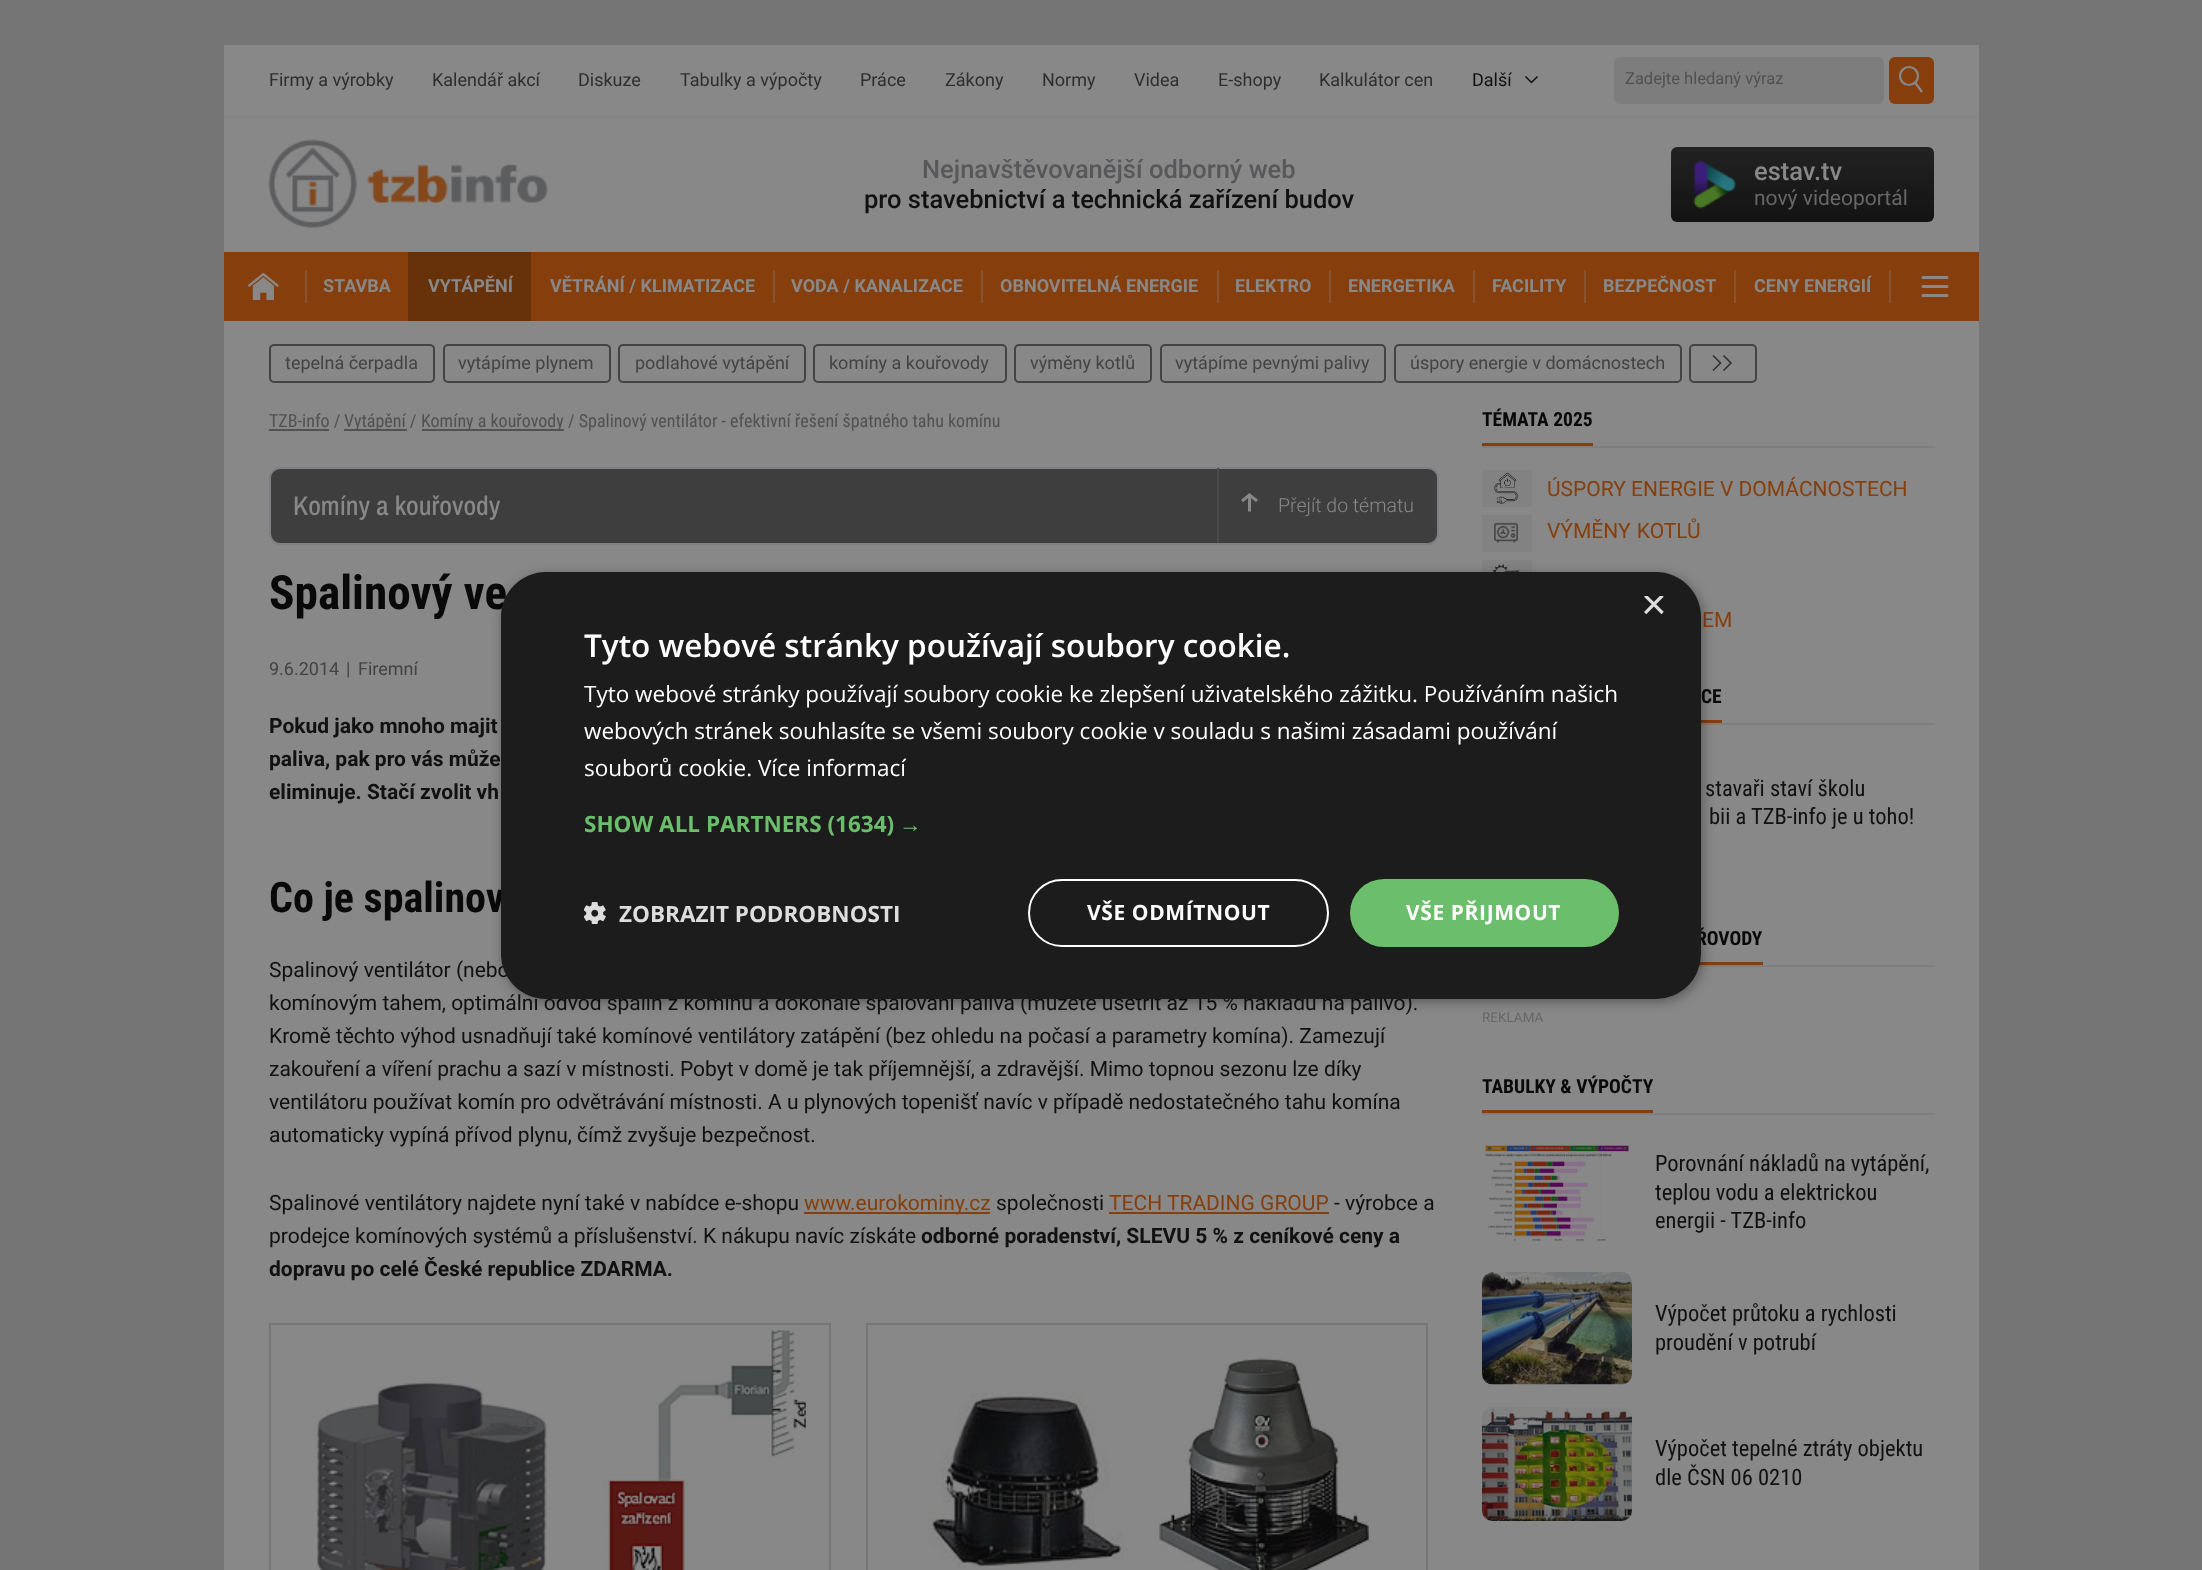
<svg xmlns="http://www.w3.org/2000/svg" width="2202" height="1570">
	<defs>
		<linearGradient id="g1" gradientUnits="userSpaceOnUse" x1="1802" y1="147" x2="1802" y2="222"><stop offset="0" stop-color="#222222" /><stop offset="1" stop-color="#131313" /></linearGradient>
		<clipPath id="clip1"><rect x="1641" y="596" width="23" height="22" /></clipPath>
	</defs>
	<rect width="100%" height="100%" fill="#757575" />
	<rect x="224" y="45" width="1755" height="1525" fill="#888888" />
	<rect x="224" y="116" width="1755" height="2" fill="#858585" />
	<g font-family="Roboto" font-size="18" fill="#2E2E2E">
		<text x="269" y="86">Firmy a výrobky</text>
		<text x="432" y="86">Kalendář akcí</text>
		<text x="578" y="86">Diskuze</text>
		<text x="680" y="86">Tabulky a výpočty</text>
		<text x="860" y="86">Práce</text>
		<text x="945" y="86">Zákony</text>
		<text x="1042" y="86">Normy</text>
		<text x="1134" y="86">Videa</text>
		<text x="1218" y="86">E-shopy</text>
		<text x="1319" y="86">Kalkulátor cen</text>
	</g>
	<path d="M1525.5 76.5L1531.5 82.5L1537.5 76.5" fill="none" stroke="#111111" stroke-width="1.5" />
	<text x="1472" y="86" font-family="Roboto" font-size="18" fill="#111111">Další</text>
	<rect x="1614" y="57" width="270" height="47" rx="6" fill="#7D7D7D" />
	<text x="1625" y="84" font-family="Roboto" font-size="16.5" fill="#515151">Zadejte hledaný výraz</text>
	<rect x="1889" y="57" width="45" height="47" rx="6" fill="#863F0C" />
	<circle cx="1909" cy="76" r="9" fill="none" stroke="#888888" stroke-width="2.2" />
	<path d="M1915.5 83L1922 92" fill="none" stroke="#888888" stroke-width="2.2" />
	<image x="268" y="139" width="280" height="89" href="assets/img1.png" />
	<text x="922" y="178" font-family="Roboto" font-size="25.5" font-weight="500" fill="#58585B">Nejnavštěvovanější odborný web</text>
	<text x="864" y="208" font-family="Roboto" font-size="25.5" font-weight="500" fill="#111111">pro stavebnictví a technická zařízení budov</text>
	<rect x="1671" y="147" width="263" height="75" rx="6" fill="url(#g1)" />
	<image x="1693" y="160" width="43" height="49" href="assets/img2.png" />
	<text x="1754" y="180" font-family="Roboto" font-size="25.5" font-weight="500" fill="#888888">estav.tv</text>
	<text x="1754" y="205" font-family="Roboto" font-size="21" fill="#676767">nový videoportál</text>
	<rect x="224" y="252" width="1755" height="69" fill="#863F0C" />
	<image x="248" y="273" width="31" height="27" href="assets/img3.png" />
	<rect x="305" y="270" width="2" height="33" fill="#875531" />
	<text x="323" y="292" font-family="Roboto" font-size="18" font-weight="700" fill="#888888">STAVBA</text>
	<rect x="408" y="252" width="123" height="69" fill="#67310A" />
	<g font-family="Roboto" font-size="18" font-weight="700" fill="#888888">
		<text x="428" y="292">VYTÁPĚNÍ</text>
		<text x="550" y="292">VĚTRÁNÍ / KLIMATIZACE</text>
	</g>
	<rect x="773" y="270" width="2" height="33" fill="#875531" />
	<text x="791" y="292" font-family="Roboto" font-size="18" font-weight="700" fill="#888888">VODA / KANALIZACE</text>
	<rect x="981" y="270" width="2" height="33" fill="#875531" />
	<text x="1000" y="292" font-family="Roboto" font-size="18" font-weight="700" fill="#888888">OBNOVITELNÁ ENERGIE</text>
	<rect x="1217" y="270" width="2" height="33" fill="#875531" />
	<text x="1235" y="292" font-family="Roboto" font-size="18" font-weight="700" fill="#888888">ELEKTRO</text>
	<rect x="1329" y="270" width="2" height="33" fill="#875531" />
	<text x="1348" y="292" font-family="Roboto" font-size="18" font-weight="700" fill="#888888">ENERGETIKA</text>
	<rect x="1473" y="270" width="2" height="33" fill="#875531" />
	<text x="1492" y="292" font-family="Roboto" font-size="18" font-weight="700" fill="#888888">FACILITY</text>
	<rect x="1584" y="270" width="2" height="33" fill="#875531" />
	<text x="1603" y="292" font-family="Roboto" font-size="18" font-weight="700" fill="#888888">BEZPEČNOST</text>
	<rect x="1734" y="270" width="2" height="33" fill="#875531" />
	<text x="1754" y="292" font-family="Roboto" font-size="18" font-weight="700" fill="#888888">CENY ENERGIÍ</text>
	<path d="M1923 277.5H1947M1947 286.5H1923M1923 295.5H1947" fill="none" stroke="#888888" stroke-width="3" stroke-linecap="round" />
	<rect x="1889" y="270" width="2" height="33" fill="#875531" />
	<rect x="270" y="345" width="164" height="37" rx="4" fill="none" stroke="#434343" stroke-width="2" />
	<text x="285" y="369" font-family="Roboto" font-size="18" fill="#434343">tepelná čerpadla</text>
	<rect x="444" y="345" width="166" height="37" rx="4" fill="none" stroke="#434343" stroke-width="2" />
	<text x="458" y="369" font-family="Roboto" font-size="18" fill="#434343">vytápíme plynem</text>
	<rect x="619" y="345" width="186" height="37" rx="4" fill="none" stroke="#434343" stroke-width="2" />
	<text x="635" y="369" font-family="Roboto" font-size="18" fill="#434343">podlahové vytápění</text>
	<rect x="814" y="345" width="192" height="37" rx="4" fill="none" stroke="#434343" stroke-width="2" />
	<text x="829" y="369" font-family="Roboto" font-size="18" fill="#434343">komíny a kouřovody</text>
	<rect x="1015" y="345" width="136" height="37" rx="4" fill="none" stroke="#434343" stroke-width="2" />
	<text x="1030" y="369" font-family="Roboto" font-size="18" fill="#434343">výměny kotlů</text>
	<rect x="1161" y="345" width="224" height="37" rx="4" fill="none" stroke="#434343" stroke-width="2" />
	<text x="1175" y="369" font-family="Roboto" font-size="18" fill="#434343">vytápíme pevnými palivy</text>
	<rect x="1395" y="345" width="286" height="37" rx="4" fill="none" stroke="#434343" stroke-width="2" />
	<text x="1410" y="369" font-family="Roboto" font-size="18" fill="#434343">úspory energie v domácnostech</text>
	<path d="M1713 355.5L1720.5 363L1713 370.5M1723.5 355.5L1731 363L1723.5 370.5" fill="none" stroke="#2E2E2E" stroke-width="1.5" />
	<rect x="1690" y="345" width="66" height="37" rx="4" fill="none" stroke="#434343" stroke-width="2" />
	<text x="269" y="427" font-family="Roboto Condensed" font-size="18" fill="#515151">TZB-info /</text>
	<rect x="269" y="429" width="60" height="2" fill="#525252" />
	<rect x="344" y="429" width="63" height="2" fill="#525252" />
	<text x="344" y="427" font-family="Roboto Condensed" font-size="18" fill="#515151">Vytápění /</text>
	<rect x="422" y="429" width="142" height="2" fill="#525252" />
	<text x="421" y="427" font-family="Roboto Condensed" font-size="18" fill="#515151">Komíny a kouřovody / Spalinový ventilátor - efektivní řešení špatného tahu komínu</text>
	<rect x="270" y="468" width="1168" height="76" rx="10" fill="#3E3E3E" stroke="#7E7F82" stroke-width="2" />
	<text x="293" y="515" font-family="Archivo Narrow" font-size="27" font-weight="500" fill="#888888">Komíny a kouřovody</text>
	<path d="M1249.5 495V511.5M1242 501L1249.5 495L1257 501" fill="none" stroke="#888888" stroke-width="3" />
	<rect x="1217" y="468" width="2" height="75" fill="#494949" />
	<text x="1278" y="512" font-family="Roboto" font-size="19.5" font-weight="300" fill="#888888">Přejít do tématu</text>
	<text x="269" y="609" font-family="Roboto Condensed" font-size="47.25" font-weight="700" fill="#090909">Spalinový ve</text>
	<g font-family="Roboto" font-size="18" fill="#434343">
		<text x="269" y="675">9.6.2014</text>
		<text x="346" y="675">|</text>
		<text x="358" y="675">Firemní</text>
	</g>
	<g font-family="Roboto" font-size="21" font-weight="700" fill="#111111">
		<text x="269" y="733">Pokud jako mnoho majit</text>
		<text x="269" y="766">paliva, pak pro vás může</text>
		<text x="269" y="799">eliminuje. Stačí zvolit vh</text>
	</g>
	<text x="269" y="912" font-family="Roboto Condensed" font-size="42" font-weight="700" fill="#090909">Co je spalinov</text>
	<g font-family="Roboto" font-size="21" fill="#111111">
		<text x="269" y="977">Spalinový ventilátor (nebo</text>
		<text x="269" y="1010">komínovým tahem, optimální odvod spalin z komínu a dokonalé spalování paliva (můžete ušetřit až 15 % nákladů na palivo).</text>
		<text x="269" y="1043">Kromě těchto výhod usnadňují také komínové ventilátory zatápění (bez ohledu na počasí a parametry komína). Zamezují</text>
		<text x="269" y="1076">zakouření a víření prachu a sazí v místnosti. Pobyt v domě je tak příjemnější, a zdravější. Mimo topnou sezonu lze díky</text>
		<text x="269" y="1109">ventilátoru používat komín pro odvětrávání místnosti. A u plynových topenišť navíc v případě nedostatečného tahu komína</text>
		<text x="269" y="1142">automaticky vypíná přívod plynu, čímž zvyšuje bezpečnost.</text>
		<text x="269" y="1210">Spalinové ventilátory najdete nyní také v nabídce e-shopu</text>
	</g>
	<rect x="804" y="1212" width="186" height="2" fill="#863F0C" />
	<text x="804" y="1210" font-family="Roboto" font-size="21" fill="#863F0C">www.eurokominy.cz</text>
	<text x="996" y="1210" font-family="Roboto" font-size="21" fill="#111111">společnosti</text>
	<text x="1109" y="1210" font-family="Roboto" font-size="21" fill="#863F0C">TECH TRADING GROUP</text>
	<rect x="1109" y="1212" width="220" height="2" fill="#863F0C" />
	<g font-family="Roboto" font-size="21" fill="#111111">
		<text x="1334" y="1210">- výrobce a</text>
		<text x="269" y="1243">prodejce komínových systémů a příslušenství. K nákupu navíc získáte</text>
	</g>
	<g font-family="Roboto" font-size="21" font-weight="700" fill="#111111">
		<text x="921" y="1243">odborné poradenství, SLEVU 5 % z ceníkové ceny a</text>
		<text x="269" y="1276">dopravu po celé České republice ZDARMA.</text>
	</g>
	<rect x="270" y="1324" width="560" height="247" fill="none" stroke="#767676" stroke-width="2" />
	<image x="317" y="1329" width="489" height="241" href="assets/img4.png" />
	<rect x="867" y="1324" width="560" height="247" fill="none" stroke="#767676" stroke-width="2" />
	<image x="928" y="1357" width="444" height="213" href="assets/img5.png" />
	<text x="1482" y="426" font-family="Roboto Condensed" font-size="19.5" font-weight="700" fill="#090909">TÉMATA 2025</text>
	<rect x="1482" y="443" width="111" height="3" fill="#863F0C" />
	<rect x="1482" y="446" width="453" height="2" fill="#7E7E7E" />
	<rect x="1482" y="470" width="50" height="37" fill="#828282" />
	<image x="1494" y="472" width="24" height="32" href="assets/img6.png" />
	<text x="1547" y="496" font-family="Roboto" font-size="21" fill="#863F0C">ÚSPORY ENERGIE V DOMÁCNOSTECH</text>
	<rect x="1482" y="515" width="50" height="37" fill="#828282" />
	<image x="1494" y="522" width="24" height="21" href="assets/img7.png" />
	<text x="1547" y="538" word-spacing="1" font-family="Roboto" font-size="21" fill="#863F0C">VÝMĚNY KOTLŮ</text>
	<rect x="1482" y="560" width="50" height="12" fill="#828282" />
	<image x="1492" y="564" width="28" height="8" href="assets/img8.png" />
	<text x="1702" y="627" font-family="Roboto" font-size="21" fill="#863F0C">EM</text>
	<text x="1701" y="703" font-family="Roboto Condensed" font-size="19.5" font-weight="700" fill="#090909">CE</text>
	<rect x="1701" y="720" width="21" height="3" fill="#863F0C" />
	<rect x="1701" y="723" width="234" height="2" fill="#7E7E7E" />
	<g font-family="Roboto Condensed" font-size="22.5" fill="#111111">
		<text x="1705" y="796">stavaři staví školu</text>
		<text x="1709" y="824">bii a TZB-info je u toho!</text>
	</g>
	<text x="1696" y="945" font-family="Roboto Condensed" font-size="19.5" font-weight="700" fill="#090909">ŘOVODY</text>
	<rect x="1699" y="962" width="64" height="3" fill="#863F0C" />
	<rect x="1699" y="965" width="236" height="2" fill="#7E7E7E" />
	<text x="1482" y="1022" font-family="Roboto" font-size="13.5" fill="#676767">REKLAMA</text>
	<text x="1482" y="1093" font-family="Roboto Condensed" font-size="19.5" font-weight="700" fill="#090909">TABULKY &amp; VÝPOČTY</text>
	<rect x="1482" y="1110" width="171" height="3" fill="#863F0C" />
	<rect x="1482" y="1113" width="453" height="2" fill="#7E7E7E" />
	<image x="1485" y="1145" width="144" height="97" href="assets/img9.png" />
	<g font-family="Roboto Condensed" font-size="22.5" fill="#111111">
		<text x="1655" y="1171">Porovnání nákladů na vytápění,</text>
		<text x="1655" y="1200">teplou vodu a elektrickou</text>
		<text x="1655" y="1228">energii - TZB-info</text>
	</g>
	<image x="1482" y="1272" width="150" height="113" href="assets/img10.png" />
	<g font-family="Roboto Condensed" font-size="22.5" fill="#111111">
		<text x="1655" y="1321">Výpočet průtoku a rychlosti</text>
		<text x="1655" y="1350">proudění v potrubí</text>
	</g>
	<image x="1482" y="1407" width="150" height="114" href="assets/img11.png" />
	<g font-family="Roboto Condensed" font-size="22.5" fill="#111111">
		<text x="1655" y="1456">Výpočet tepelné ztráty objektu</text>
		<text x="1655" y="1485">dle ČSN 06 0210</text>
	</g>
	<rect x="503" y="575" width="1200" height="427" rx="45" fill="#000000" fill-opacity="0.35" filter="blur(6px)" />
	<rect x="501" y="572" width="1200" height="427" rx="45" fill="#1C1C1C" />
	<g clip-path="url(#clip1)">
		<text x="1641" y="619" font-family="Liberation Sans" font-size="44" fill="#DDDDDD">×</text>
	</g>
	<text x="584" y="657" font-family="Open Sans" font-size="31.5" font-weight="600" fill="#FFFFFF">Tyto webové stránky používají soubory cookie.</text>
	<g font-family="Open Sans" font-size="22.5" fill="#FFFFFF">
		<text x="584" y="702">Tyto webové stránky používají soubory cookie ke zlepšení uživatelského zážitku. Používáním našich</text>
		<text x="584" y="739">webových stránek souhlasíte se všemi soubory cookie v souladu s našimi zásadami používání</text>
		<text x="584" y="776">souborů cookie. Více informací</text>
	</g>
	<text x="584" y="832" font-family="Open Sans" font-size="22.5" font-weight="700" fill="#6BBE6B">SHOW ALL PARTNERS (1634)</text>
	<text x="899" y="832" font-family="Liberation Sans" font-size="22.5" font-weight="700" fill="#6BBE6B">→</text>
	<image x="584" y="902" width="22" height="22" href="assets/img12.png" />
	<text x="619" y="922" font-family="Open Sans" font-size="22.5" font-weight="700" fill="#DDDDDD">ZOBRAZIT PODROBNOSTI</text>
	<rect x="1029" y="880" width="299" height="66" rx="33" fill="none" stroke="#FFFFFF" stroke-width="2" />
	<text x="1087" y="920" font-family="Open Sans" font-size="21" font-weight="700" letter-spacing="0.6" fill="#FFFFFF">VŠE ODMÍTNOUT</text>
	<rect x="1350" y="879" width="269" height="68" rx="34" fill="#6BBE6B" />
	<text x="1406" y="920" font-family="Open Sans" font-size="21" font-weight="700" letter-spacing="0.6" fill="#FFFFFF">VŠE PŘIJMOUT</text>
</svg>
